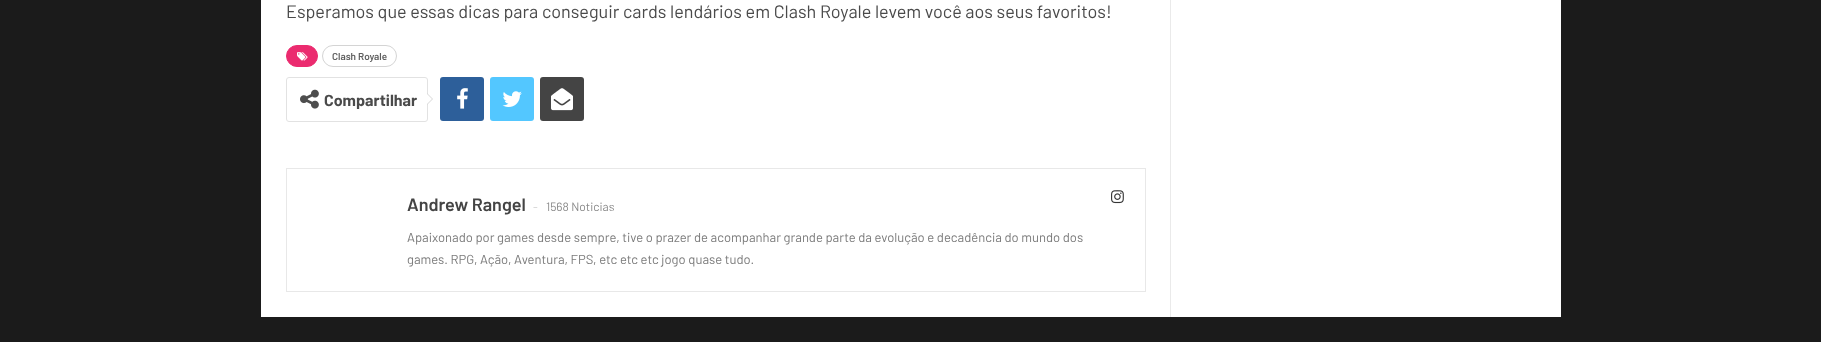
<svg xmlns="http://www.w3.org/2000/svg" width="1821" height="342">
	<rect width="100%" height="100%" fill="#1B1B1B" />
	<rect x="261" y="0" width="1300" height="317" fill="#FFFFFF" />
	<text x="286" y="18" font-family="Barlow" font-size="18" fill="#4A4A4A">Esperamos que essas dicas para conseguir cards lendários em Clash Royale levem você aos seus favoritos!</text>
	<rect x="286.5" y="45.5" width="31" height="21" rx="10.5" fill="#EB2B6F" stroke="#EB2B6F" />
	<image x="297" y="52" width="11" height="9" href="assets/img1.png" />
	<rect x="322.5" y="45.5" width="74" height="21" rx="10.5" fill="none" stroke="#D4D4D4" />
	<text x="332" y="60" font-family="Barlow" font-size="10" font-weight="600" fill="#5F5F5F">Clash Royale</text>
	<rect x="286.5" y="77.5" width="141" height="44" rx="2.5" fill="none" stroke="#E2E2E2" />
	<image x="300" y="89" width="19" height="20" href="assets/img2.png" />
	<text x="324" y="106" font-family="Barlow" font-size="16" font-weight="700" fill="#4A4A4A">Compartilhar</text>
	<path d="M427 105V93L433 99Z" fill="#D7D7D7" />
	<path d="M427 104V94L432 99Z" fill="#FFFFFF" />
	<rect x="440" y="77" width="44" height="44" rx="3" fill="#2D5F9A" />
	<image x="457" y="88" width="11" height="21" href="assets/img3.png" />
	<rect x="490" y="77" width="44" height="44" rx="3" fill="#53C7FF" />
	<image x="502" y="91" width="20" height="16" href="assets/img4.png" />
	<rect x="540" y="77" width="44" height="44" rx="3" fill="#444444" />
	<image x="551" y="88" width="22" height="23" href="assets/img5.png" />
	<rect x="286.5" y="168.5" width="859" height="123" fill="none" stroke="#E8E8E8" />
	<text x="407" y="211" font-family="Barlow" font-size="18" font-weight="600" fill="#444444">Andrew Rangel</text>
	<text x="533" y="211" font-family="Barlow" font-size="12" fill="#D0D0D0">-</text>
	<text x="546" y="211" font-family="Barlow" font-size="12" fill="#8A8A8A">1568 Noticias</text>
	<image x="1111" y="190" width="13" height="14" href="assets/img6.png" />
	<g font-family="Barlow" font-size="13" fill="#7B7B7B">
		<text x="407" y="242">Apaixonado por games desde sempre, tive o prazer de acompanhar grande parte da evolução e decadência do mundo dos</text>
		<text x="407" y="264">games. RPG, Ação, Aventura, FPS, etc etc etc jogo quase tudo.</text>
	</g>
	<rect x="1170" y="0" width="1" height="317" fill="#EAEAEA" />
</svg>
